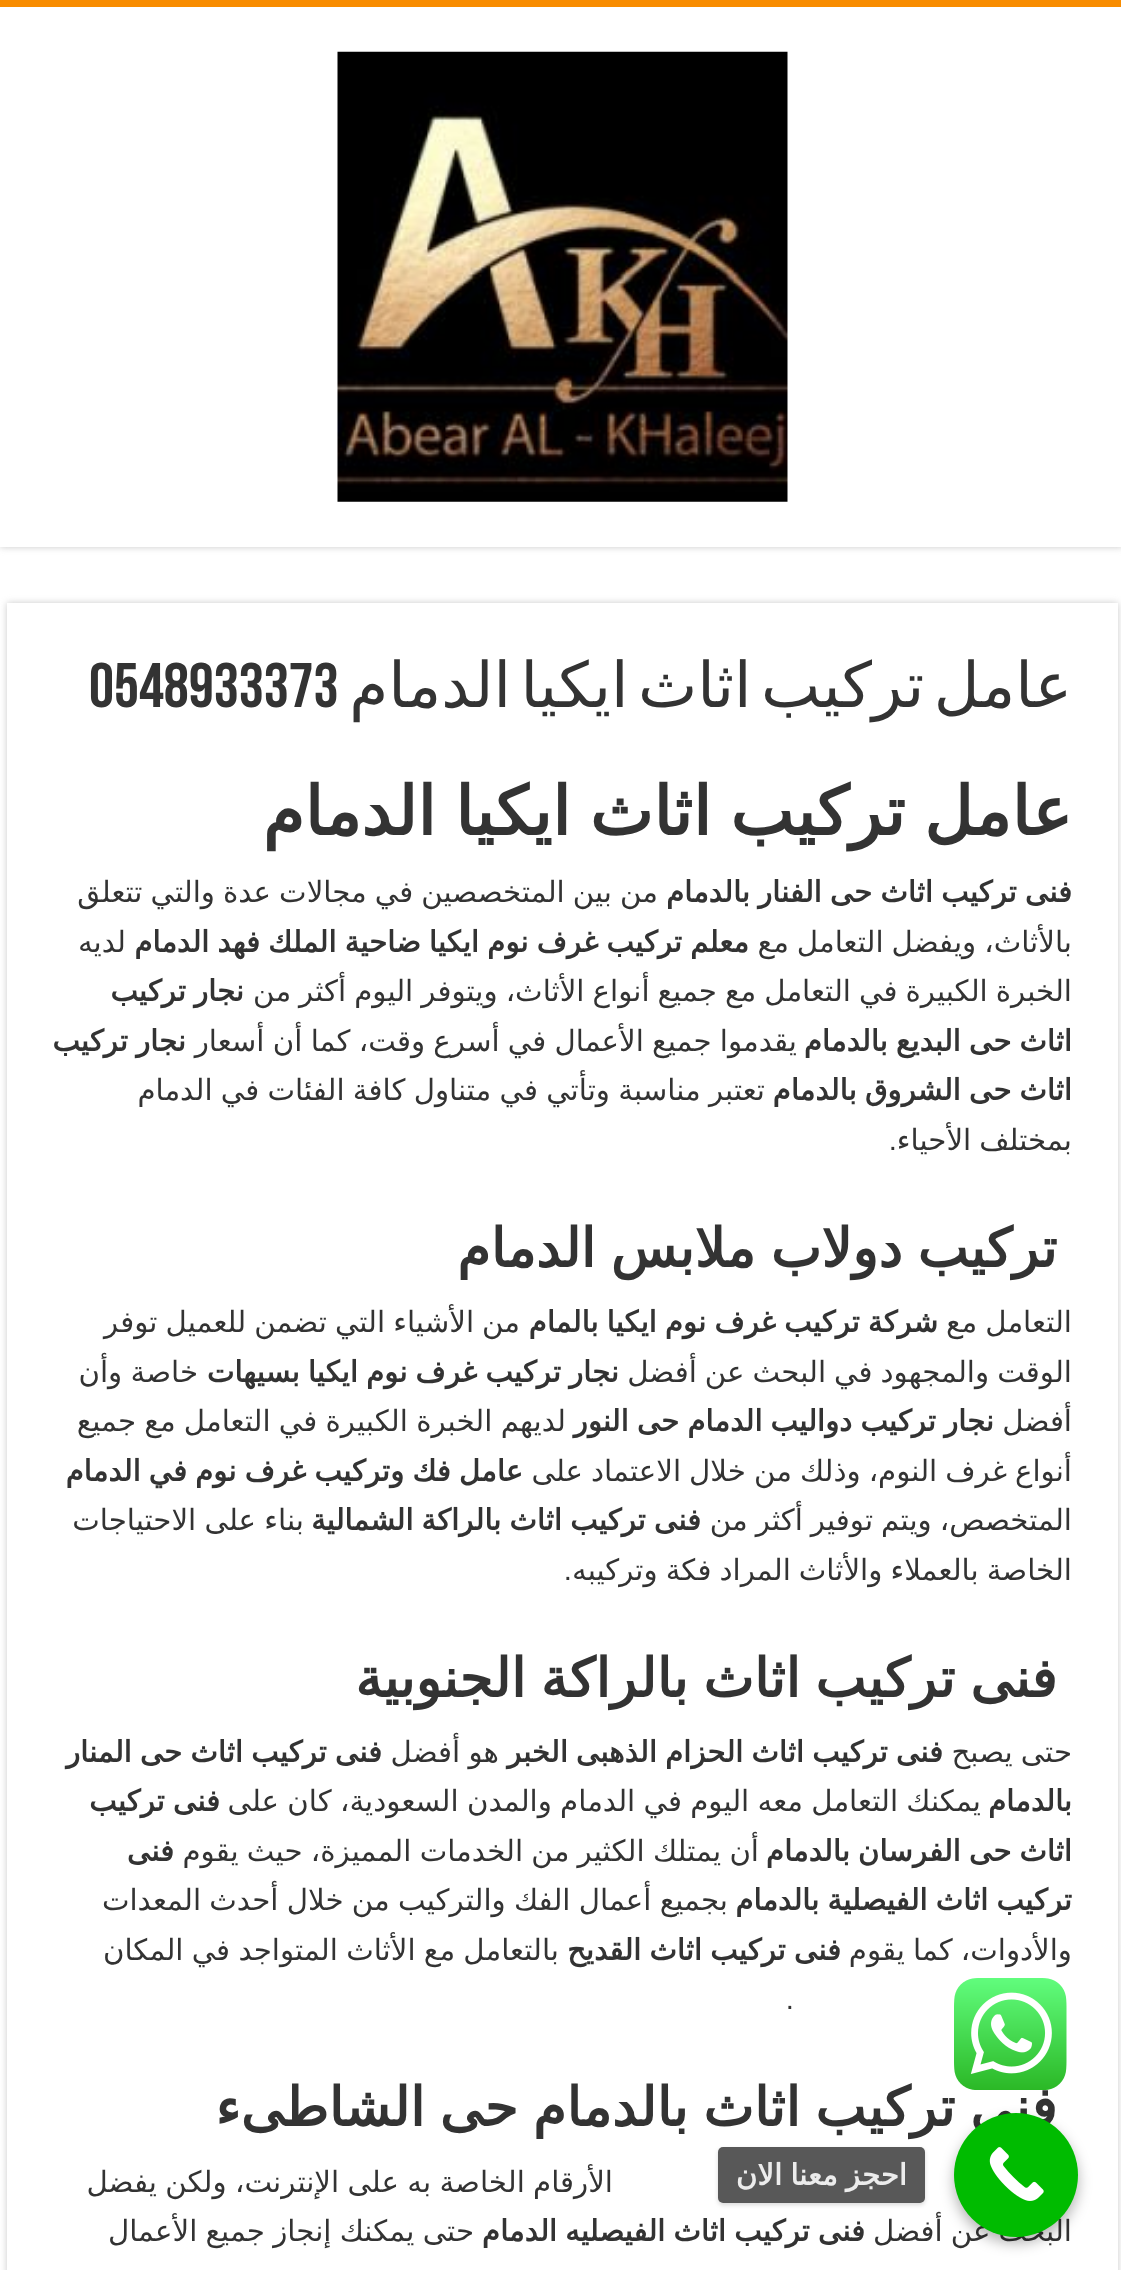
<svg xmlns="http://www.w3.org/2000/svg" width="1121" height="2270">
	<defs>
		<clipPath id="clip1"><path d="M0 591H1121V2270H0ZM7 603H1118V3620H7Z" clip-rule="evenodd" /></clipPath>
		<clipPath id="clip2"><path d="M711 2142H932V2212H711ZM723 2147H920C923 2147 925 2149 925 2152V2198C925 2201 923 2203 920 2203H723C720 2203 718 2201 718 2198V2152C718 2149 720 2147 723 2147Z" clip-rule="evenodd" /></clipPath>
	</defs>
	<rect width="100%" height="100%" fill="#FFFFFF" />
	<rect x="0" y="0" width="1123" height="547" fill="#CACACA" filter="blur(3.5px)" />
	<rect x="0" y="7" width="1121" height="540" fill="#FFFFFF" />
	<rect x="0" y="0" width="1121" height="7" fill="#F88C00" />
	<image x="337" y="51" width="451" height="451" href="assets/img1.png" />
	<g clip-path="url(#clip1)">
		<rect x="7" y="603" width="1111" height="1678" fill="#CACACA" filter="blur(3.5px)" />
	</g>
	<text x="1072" y="707" word-spacing="-10.5" font-family="DejaVu Sans" font-size="63" direction="rtl" fill="#333333">عامل تركيب اثاث ايكيا الدمام</text>
	<text x="89" y="707" font-family="Bebas Neue" font-size="63" font-weight="700" fill="#333333">0548933373</text>
	<text x="1072" y="835" word-spacing="-2.5" font-family="DejaVu Sans" font-size="67.5" font-weight="700" direction="rtl" fill="#333333">عامل تركيب اثاث ايكيا الدمام</text>
	<text x="1072" y="902" word-spacing="-1.25" font-family="DejaVu Sans" font-size="29.25" font-weight="700" direction="rtl" fill="#333333">فنى تركيب اثاث حى الفنار بالدمام</text>
	<g font-family="DejaVu Sans" font-size="29.25" direction="rtl" fill="#333333">
		<text x="658" y="902" word-spacing="-1.25">من بين المتخصصين في مجالات عدة والتي تتعلق</text>
		<text x="1072" y="952" word-spacing="-1.25">بالأثاث، ويفضل التعامل مع</text>
	</g>
	<text x="749" y="952" word-spacing="-1.25" font-family="DejaVu Sans" font-size="29.25" font-weight="700" direction="rtl" fill="#333333">معلم تركيب غرف نوم ايكيا ضاحية الملك فهد الدمام</text>
	<g font-family="DejaVu Sans" font-size="29.25" direction="rtl" fill="#333333">
		<text x="126" y="952">لديه</text>
		<text x="1072" y="1001" word-spacing="-1.25">الخبرة الكبيرة في التعامل مع جميع أنواع الأثاث، ويتوفر اليوم أكثر من</text>
	</g>
	<g font-family="DejaVu Sans" font-size="29.25" font-weight="700" direction="rtl" fill="#333333">
		<text x="244" y="1001" word-spacing="-1.25">نجار تركيب</text>
		<text x="1072" y="1051" word-spacing="-1.25">اثاث حى البديع بالدمام</text>
	</g>
	<text x="797" y="1051" word-spacing="-1" font-family="DejaVu Sans" font-size="29.25" direction="rtl" fill="#333333">يقدموا جميع الأعمال في أسرع وقت، كما أن أسعار</text>
	<g font-family="DejaVu Sans" font-size="29.25" font-weight="700" direction="rtl" fill="#333333">
		<text x="186" y="1051" word-spacing="-1.25">نجار تركيب</text>
		<text x="1072" y="1100" word-spacing="-1.25">اثاث حى الشروق بالدمام</text>
	</g>
	<g font-family="DejaVu Sans" font-size="29.25" direction="rtl" fill="#333333">
		<text x="765" y="1100" word-spacing="-1">تعتبر مناسبة وتأتي في متناول كافة الفئات في الدمام</text>
		<text x="1072" y="1150" word-spacing="-1.25">بمختلف الأحياء</text>
	</g>
	<text x="897" y="1150" font-family="Liberation Sans" font-size="29.25" direction="rtl" fill="#333333">.</text>
	<text x="1057" y="1267" word-spacing="-2.25" font-family="DejaVu Sans" font-size="54" font-weight="700" direction="rtl" fill="#333333">تركيب دولاب ملابس الدمام</text>
	<text x="1072" y="1332" word-spacing="-1.25" font-family="DejaVu Sans" font-size="29.25" direction="rtl" fill="#333333">التعامل مع</text>
	<text x="938" y="1332" word-spacing="-1.25" font-family="DejaVu Sans" font-size="29.25" font-weight="700" direction="rtl" fill="#333333">شركة تركيب غرف نوم ايكيا بالمام</text>
	<g font-family="DejaVu Sans" font-size="29.25" direction="rtl" fill="#333333">
		<text x="520" y="1332" word-spacing="-1.25">من الأشياء التي تضمن للعميل توفر</text>
		<text x="1072" y="1382" word-spacing="-1.25">الوقت والمجهود في البحث عن أفضل</text>
	</g>
	<text x="619" y="1382" word-spacing="-1.25" font-family="DejaVu Sans" font-size="29.25" font-weight="700" direction="rtl" fill="#333333">نجار تركيب غرف نوم ايكيا بسيهات</text>
	<g font-family="DejaVu Sans" font-size="29.25" direction="rtl" fill="#333333">
		<text x="198" y="1382" word-spacing="-1">خاصة وأن</text>
		<text x="1072" y="1431">أفضل</text>
	</g>
	<text x="994" y="1431" word-spacing="-1.25" font-family="DejaVu Sans" font-size="29.25" font-weight="700" direction="rtl" fill="#333333">نجار تركيب دواليب الدمام حى النور</text>
	<g font-family="DejaVu Sans" font-size="29.25" direction="rtl" fill="#333333">
		<text x="566" y="1431" word-spacing="-1">لديهم الخبرة الكبيرة في التعامل مع جميع</text>
		<text x="1072" y="1481" word-spacing="-1.25">أنواع غرف النوم، وذلك من خلال الاعتماد على</text>
	</g>
	<text x="523" y="1481" word-spacing="-1.25" font-family="DejaVu Sans" font-size="29.25" font-weight="700" direction="rtl" fill="#333333">عامل فك وتركيب غرف نوم في الدمام</text>
	<text x="1072" y="1530" word-spacing="-1.25" font-family="DejaVu Sans" font-size="29.25" direction="rtl" fill="#333333">المتخصص، ويتم توفير أكثر من</text>
	<text x="701" y="1530" word-spacing="-1.25" font-family="DejaVu Sans" font-size="29.25" font-weight="700" direction="rtl" fill="#333333">فنى تركيب اثاث بالراكة الشمالية</text>
	<g font-family="DejaVu Sans" font-size="29.25" direction="rtl" fill="#333333">
		<text x="304" y="1530" word-spacing="-1">بناء على الاحتياجات</text>
		<text x="1072" y="1580" word-spacing="-1.25">الخاصة بالعملاء والأثاث المراد فكة وتركيبه</text>
	</g>
	<text x="572" y="1580" font-family="Liberation Sans" font-size="29.25" direction="rtl" fill="#333333">.</text>
	<text x="1057" y="1697" word-spacing="-2.25" font-family="DejaVu Sans" font-size="54" font-weight="700" direction="rtl" fill="#333333">فنى تركيب اثاث بالراكة الجنوبية</text>
	<text x="1072" y="1762" word-spacing="-1.25" font-family="DejaVu Sans" font-size="29.25" direction="rtl" fill="#333333">حتى يصبح</text>
	<text x="943" y="1762" word-spacing="-1.25" font-family="DejaVu Sans" font-size="29.25" font-weight="700" direction="rtl" fill="#333333">فنى تركيب اثاث الحزام الذهبى الخبر</text>
	<text x="499" y="1762" word-spacing="-1" font-family="DejaVu Sans" font-size="29.25" direction="rtl" fill="#333333">هو أفضل</text>
	<g font-family="DejaVu Sans" font-size="29.25" font-weight="700" direction="rtl" fill="#333333">
		<text x="382" y="1762" word-spacing="-1.25">فنى تركيب اثاث حى المنار</text>
		<text x="1072" y="1811">بالدمام</text>
	</g>
	<text x="981" y="1811" word-spacing="-1" font-family="DejaVu Sans" font-size="29.25" direction="rtl" fill="#333333">يمكنك التعامل معه اليوم في الدمام والمدن السعودية، كان على</text>
	<g font-family="DejaVu Sans" font-size="29.25" font-weight="700" direction="rtl" fill="#333333">
		<text x="220" y="1811" word-spacing="-1.25">فنى تركيب</text>
		<text x="1072" y="1861" word-spacing="-1.25">اثاث حى الفرسان بالدمام</text>
	</g>
	<text x="759" y="1861" word-spacing="-1" font-family="DejaVu Sans" font-size="29.25" direction="rtl" fill="#333333">أن يمتلك الكثير من الخدمات المميزة، حيث يقوم</text>
	<g font-family="DejaVu Sans" font-size="29.25" font-weight="700" direction="rtl" fill="#333333">
		<text x="174" y="1861">فنى</text>
		<text x="1072" y="1910" word-spacing="-1.25">تركيب اثاث الفيصلية بالدمام</text>
	</g>
	<g font-family="DejaVu Sans" font-size="29.25" direction="rtl" fill="#333333">
		<text x="728" y="1910" word-spacing="-1">بجميع أعمال الفك والتركيب من خلال أحدث المعدات</text>
		<text x="1072" y="1960" word-spacing="-1.25">والأدوات، كما يقوم</text>
	</g>
	<text x="841" y="1960" word-spacing="-1.25" font-family="DejaVu Sans" font-size="29.25" font-weight="700" direction="rtl" fill="#333333">فنى تركيب اثاث القديح</text>
	<text x="559" y="1960" word-spacing="-1" font-family="DejaVu Sans" font-size="29.25" direction="rtl" fill="#333333">بالتعامل مع الأثاث المتواجد في المكان</text>
	<text x="794" y="2009" font-family="Liberation Sans" font-size="29.25" direction="rtl" fill="#333333">.</text>
	<text x="1057" y="2126" word-spacing="-2.25" font-family="DejaVu Sans" font-size="54" font-weight="700" direction="rtl" fill="#333333">فنى تركيب اثاث بالدمام حى الشاطىء</text>
	<g font-family="DejaVu Sans" font-size="29.25" direction="rtl" fill="#333333">
		<text x="613" y="2192" word-spacing="-1">الأرقام الخاصة به على الإنترنت، ولكن يفضل</text>
		<text x="1072" y="2241" word-spacing="-1.25">البحث عن أفضل</text>
	</g>
	<text x="865" y="2241" word-spacing="-1.25" font-family="DejaVu Sans" font-size="29.25" font-weight="700" direction="rtl" fill="#333333">فنى تركيب اثاث الفيصليه الدمام</text>
	<text x="474" y="2241" word-spacing="-1" font-family="DejaVu Sans" font-size="29.25" direction="rtl" fill="#333333">حتى يمكنك إنجاز جميع الأعمال</text>
	<image x="954" y="1978" width="113" height="112" href="assets/img2.png" />
	<rect x="954" y="2120" width="124" height="123" rx="61.5" fill="#000000" fill-opacity="0.3" filter="blur(7px)" />
	<circle cx="1016" cy="2175" r="62" fill="#00BB00" />
	<image x="989" y="2147" width="55" height="54" href="assets/img3.png" />
	<g clip-path="url(#clip2)">
		<rect x="718" y="2149" width="207" height="56" rx="5" fill="#000000" fill-opacity="0.15" filter="blur(2px)" />
	</g>
	<rect x="718" y="2147" width="207" height="56" rx="5" fill="#464646" fill-opacity="0.9" />
	<text x="907" y="2185" word-spacing="-1.25" font-family="DejaVu Sans" font-size="29.25" font-weight="700" direction="rtl" fill="#ECECEC">احجز معنا الان</text>
</svg>
